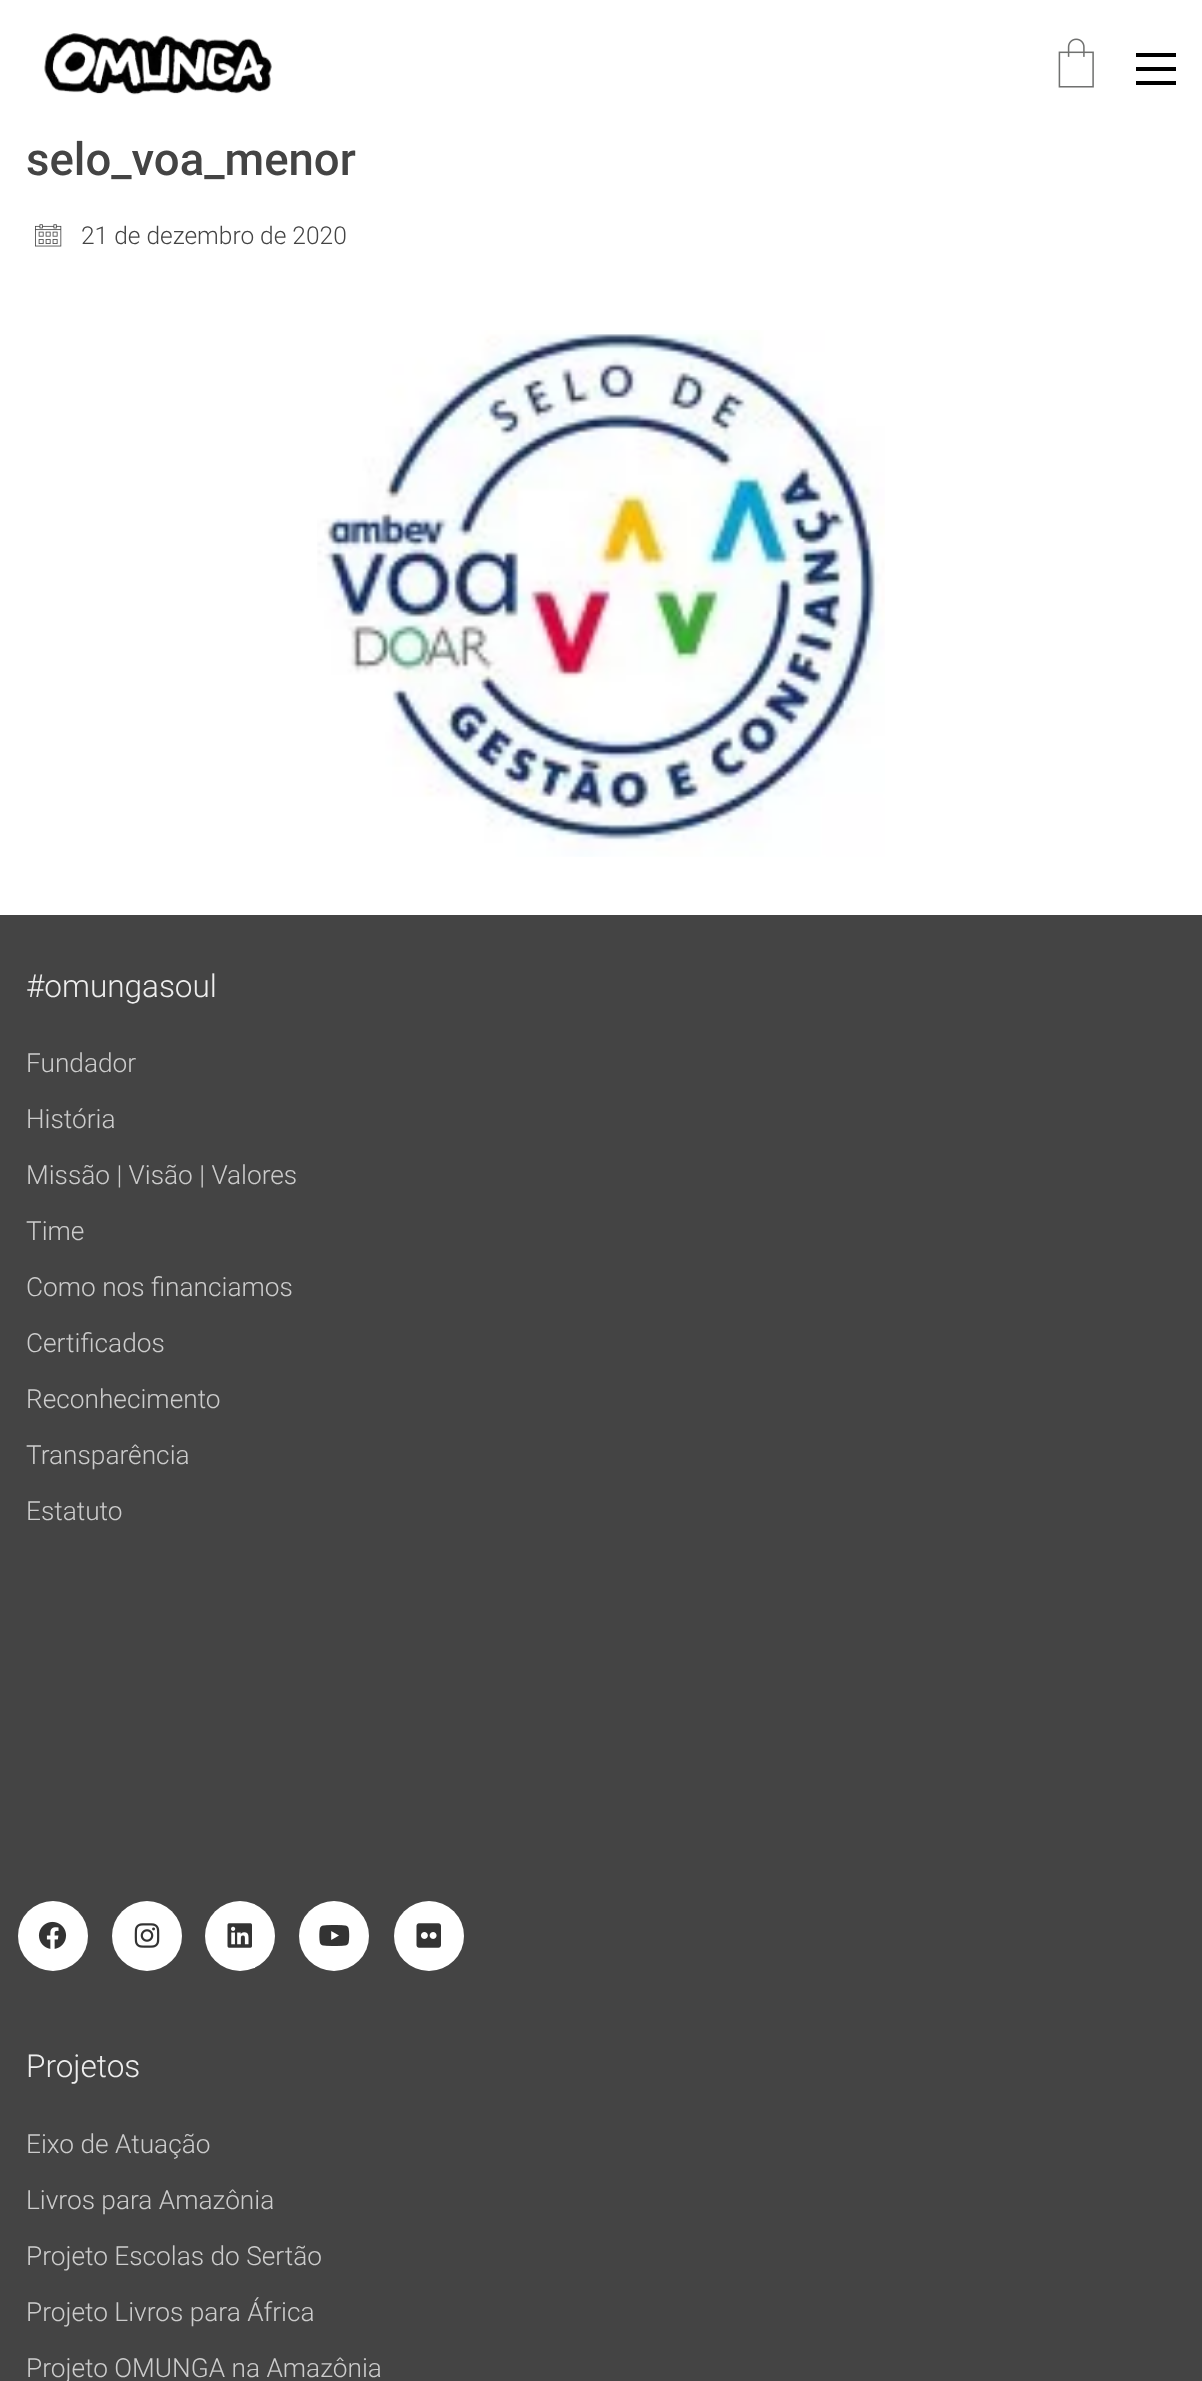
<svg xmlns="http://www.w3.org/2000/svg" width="1202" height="2381">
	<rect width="100%" height="100%" fill="#FFFFFF" />
	<image x="44" y="33" width="228" height="62" href="assets/img1.png" />
	<image x="1058" y="38" width="36" height="50" href="assets/img2.png" />
	<rect x="1136" y="53" width="40" height="4" fill="#000000" />
	<rect x="1136" y="67" width="40" height="4" fill="#000000" />
	<rect x="1136" y="81" width="40" height="4" fill="#000000" />
	<text x="26" y="175" font-family="Roboto" font-size="45.5" font-weight="500" fill="#444444">selo_voa_menor</text>
	<image x="35" y="224" width="27" height="23" href="assets/img3.png" />
	<text x="81" y="244" font-family="Roboto" font-size="24.5" font-weight="300" fill="#444444">21 de dezembro de 2020</text>
	<image x="317" y="330" width="568" height="527" href="assets/img4.png" />
	<rect x="0" y="915" width="1202" height="1466" fill="#444444" />
	<text x="26" y="997" font-family="Roboto" font-size="31.5" font-weight="300" fill="#EEEEEE">#omungasoul</text>
	<g font-family="Roboto" font-size="26.25" font-weight="300" fill="#CCCCCC">
		<text x="26" y="1072">Fundador</text>
		<text x="26" y="1128">História</text>
		<text x="26" y="1184">Missão | Visão | Valores</text>
		<text x="26" y="1240">Time</text>
		<text x="26" y="1296">Como nos financiamos</text>
		<text x="26" y="1352">Certificados</text>
		<text x="26" y="1408">Reconhecimento</text>
		<text x="26" y="1464">Transparência</text>
		<text x="26" y="1520">Estatuto</text>
	</g>
	<circle cx="53" cy="1936" r="35" fill="#FFFFFF" />
	<image x="38" y="1921" width="29" height="28" href="assets/img5.png" />
	<circle cx="147" cy="1936" r="35" fill="#FFFFFF" />
	<image x="134" y="1923" width="26" height="25" href="assets/img6.png" />
	<circle cx="240" cy="1936" r="35" fill="#FFFFFF" />
	<image x="227" y="1923" width="25" height="25" href="assets/img7.png" />
	<circle cx="334" cy="1936" r="35" fill="#FFFFFF" />
	<image x="319" y="1925" width="31" height="21" href="assets/img8.png" />
	<circle cx="429" cy="1936" r="35" fill="#FFFFFF" />
	<image x="416" y="1923" width="25" height="25" href="assets/img9.png" />
	<text x="26" y="2077" font-family="Roboto" font-size="31.5" font-weight="300" fill="#EEEEEE">Projetos</text>
	<g font-family="Roboto" font-size="26.25" font-weight="300" fill="#CCCCCC">
		<text x="26" y="2153">Eixo de Atuação</text>
		<text x="26" y="2209">Livros para Amazônia</text>
		<text x="26" y="2265">Projeto Escolas do Sertão</text>
		<text x="26" y="2321">Projeto Livros para África</text>
		<text x="26" y="2377">Projeto OMUNGA na Amazônia</text>
	</g>
</svg>
